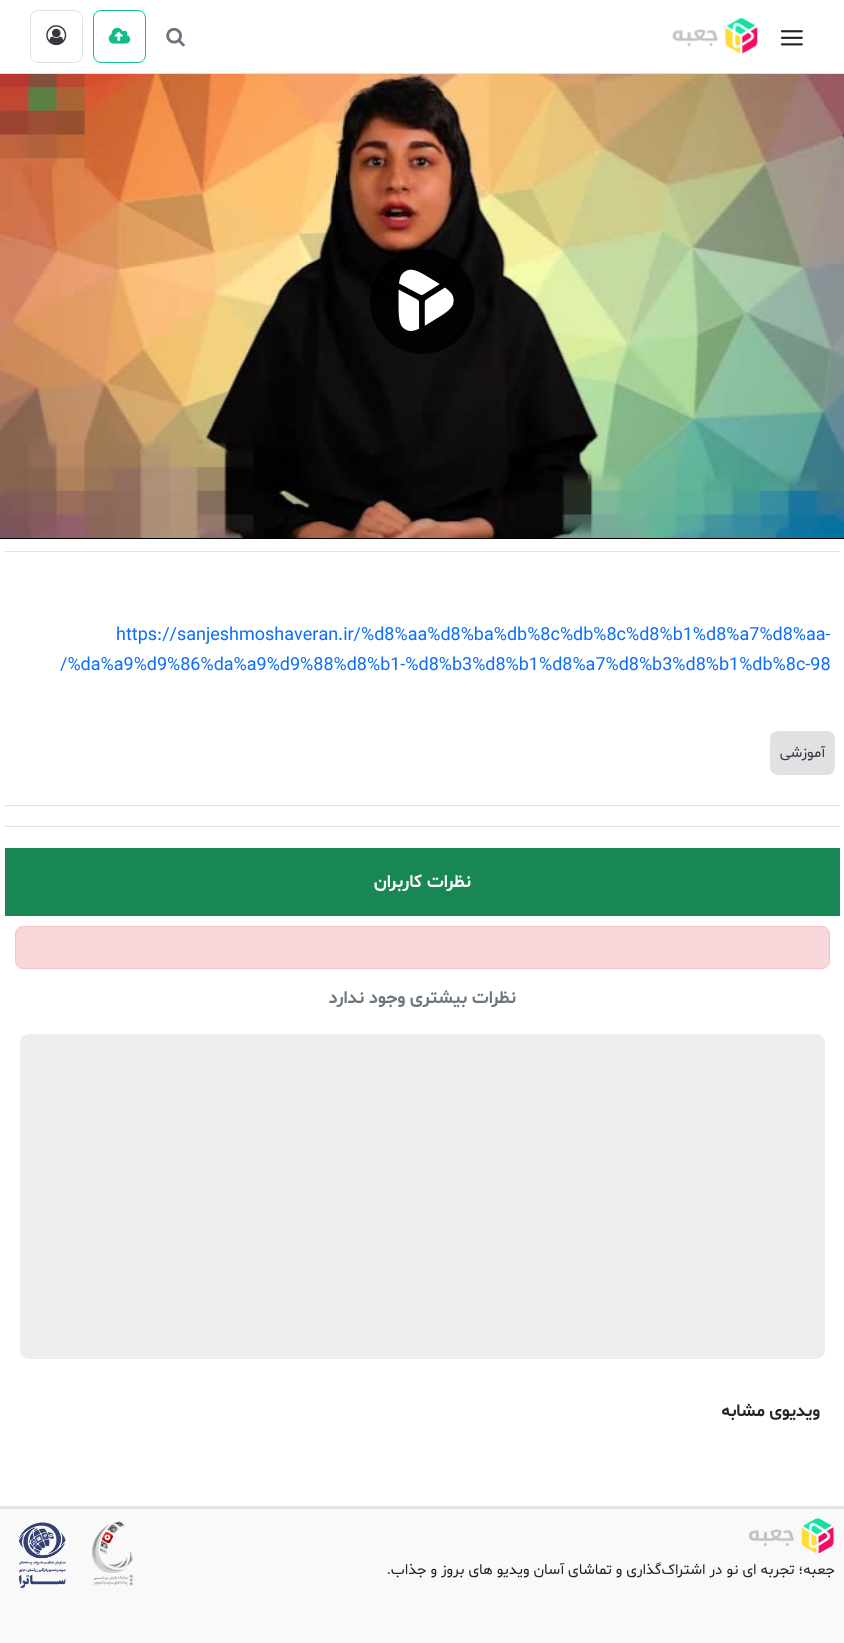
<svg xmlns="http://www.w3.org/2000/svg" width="844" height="1643">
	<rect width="100%" height="100%" fill="#FFFFFF" />
	<rect x="0" y="73" width="844" height="1" fill="#E0E1E3" />
	<rect x="30.5" y="10.5" width="52" height="52" rx="7.5" fill="none" stroke="#E0E1E3" />
	<image x="46" y="25" width="21" height="21" href="assets/img1.png" />
	<rect x="93.5" y="10.5" width="52" height="52" rx="7.5" fill="none" stroke="#10BC8B" />
	<image x="108" y="27" width="23" height="17" href="assets/img2.png" />
	<image x="166" y="27" width="19" height="20" href="assets/img3.png" />
	<image x="672" y="18" width="86" height="36" href="assets/img4.png" />
	<image x="780" y="30" width="23" height="16" href="assets/img5.png" />
	<rect x="0" y="538" width="844" height="1" fill="#000000" />
	<image x="0" y="74" width="844" height="464" href="assets/img6.png" />
	<circle cx="422.5" cy="301.5" r="52.5" fill="#000000" fill-opacity="0.8" />
	<image x="398" y="269" width="56" height="62" href="assets/img7.png" />
	<rect x="5" y="551" width="835" height="1" fill="#E0E1E3" />
	<g font-family="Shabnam" font-size="18" fill="#0D6EFD">
		<text x="116" y="640">https://sanjeshmoshaveran.ir/%d8%aa%d8%ba%db%8c%db%8c%d8%b1%d8%a7%d8%aa-</text>
		<text x="60" y="670">/%da%a9%d9%86%da%a9%d9%88%d8%b1-%d8%b3%d8%b1%d8%a7%d8%b3%d8%b1%db%8c-98</text>
	</g>
	<rect x="770" y="731" width="65" height="44" rx="8" fill="#E0E1E3" />
	<text x="825" y="757" font-family="Shabnam" font-size="15" direction="rtl" fill="#37393E">آموزشی</text>
	<rect x="5" y="805" width="835" height="1" fill="#E0E1E3" />
	<rect x="5" y="826" width="835" height="1" fill="#E0E1E3" />
	<rect x="5" y="848" width="835" height="68" fill="#198754" />
	<text x="471" y="887" font-family="Shabnam" font-size="18" font-weight="700" direction="rtl" fill="#FFFFFF">نظرات کاربران</text>
	<rect x="15.5" y="926.5" width="814" height="42" rx="7.5" fill="#F8D7DA" stroke="#F5C2C7" />
	<text x="516" y="1003" font-family="Shabnam" font-size="18" font-weight="700" direction="rtl" fill="#6C757D">نظرات بیشتری وجود ندارد</text>
	<rect x="20" y="1034" width="805" height="325" rx="9" fill="#EDEDED" />
	<text x="820" y="1416" font-family="Shabnam" font-size="17.5" font-weight="700" direction="rtl" fill="#212529">ویدیوی مشابه</text>
	<rect x="0" y="1509" width="844" height="134" fill="#F9F9F9" />
	<rect x="0" y="1506" width="844" height="3" fill="#E0E1E3" />
	<image x="18" y="1522" width="48" height="66" href="assets/img8.png" />
	<image x="91" y="1521" width="43" height="65" href="assets/img9.png" />
	<image x="749" y="1518" width="85" height="35" href="assets/img10.png" />
	<text x="835" y="1574" font-family="Shabnam" font-size="15" direction="rtl" fill="#212529">جعبه؛ تجربه ای نو در اشتراک‌گذاری و تماشای آسان ویدیو های بروز و جذاب.</text>
</svg>
